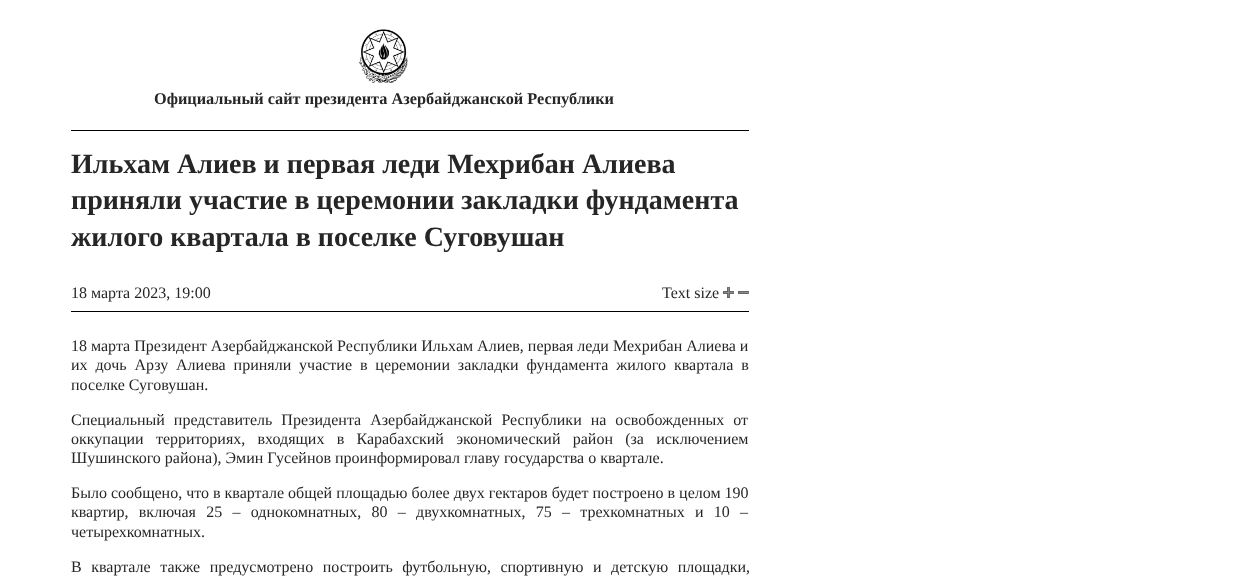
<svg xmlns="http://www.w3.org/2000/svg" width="1246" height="580">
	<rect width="100%" height="100%" fill="#FFFFFF" />
	<image x="358" y="29" width="50" height="55" href="assets/img1.png" />
	<text x="154" y="104" font-family="Liberation Serif" font-size="16.3" font-weight="700" fill="#262626">Официальный сайт президента Азербайджанской Республики</text>
	<rect x="71" y="130" width="678" height="1" fill="#000000" />
	<g font-family="Liberation Serif" font-size="28" font-weight="700" fill="#262626">
		<text x="71" y="173">Ильхам Алиев и первая леди Мехрибан Алиева</text>
		<text x="71" y="209">приняли участие в церемонии закладки фундамента</text>
		<text x="71" y="246">жилого квартала в поселке Суговушан</text>
	</g>
	<rect x="71" y="311" width="678" height="1" fill="#000000" />
	<g font-family="Liberation Serif" font-size="16" fill="#262626">
		<text x="71" y="298">18 марта 2023, 19:00</text>
		<text x="662" y="298">Text size</text>
	</g>
	<image x="723" y="287" width="11" height="11" href="assets/img2.png" />
	<image x="738" y="291" width="11" height="3" href="assets/img3.png" />
	<g font-family="Liberation Serif" font-size="16" fill="#262626">
		<text x="71" y="351">18 марта Президент Азербайджанской Республики Ильхам Алиев, первая леди Мехрибан Алиева и</text>
		<text x="71" y="370" word-spacing="3.9">их дочь Арзу Алиева приняли участие в церемонии закладки фундамента жилого квартала в</text>
		<text x="71" y="390">поселке Суговушан.</text>
		<text x="71" y="425" word-spacing="5">Специальный представитель Президента Азербайджанской Республики на освобожденных от</text>
		<text x="71" y="444" word-spacing="8.25">оккупации территориях, входящих в Карабахский экономический район (за исключением</text>
		<text x="71" y="463">Шушинского района), Эмин Гусейнов проинформировал главу государства о квартале.</text>
		<text x="71" y="498">Было сообщено, что в квартале общей площадью более двух гектаров будет построено в целом 190</text>
		<text x="71" y="517" word-spacing="6.25">квартир, включая 25 – однокомнатных, 80 – двухкомнатных, 75 – трехкомнатных и 10 –</text>
		<text x="71" y="537">четырехкомнатных.</text>
		<text x="71" y="572" word-spacing="5.5">В квартале также предусмотрено построить футбольную, спортивную и детскую площадки,</text>
	</g>
</svg>
